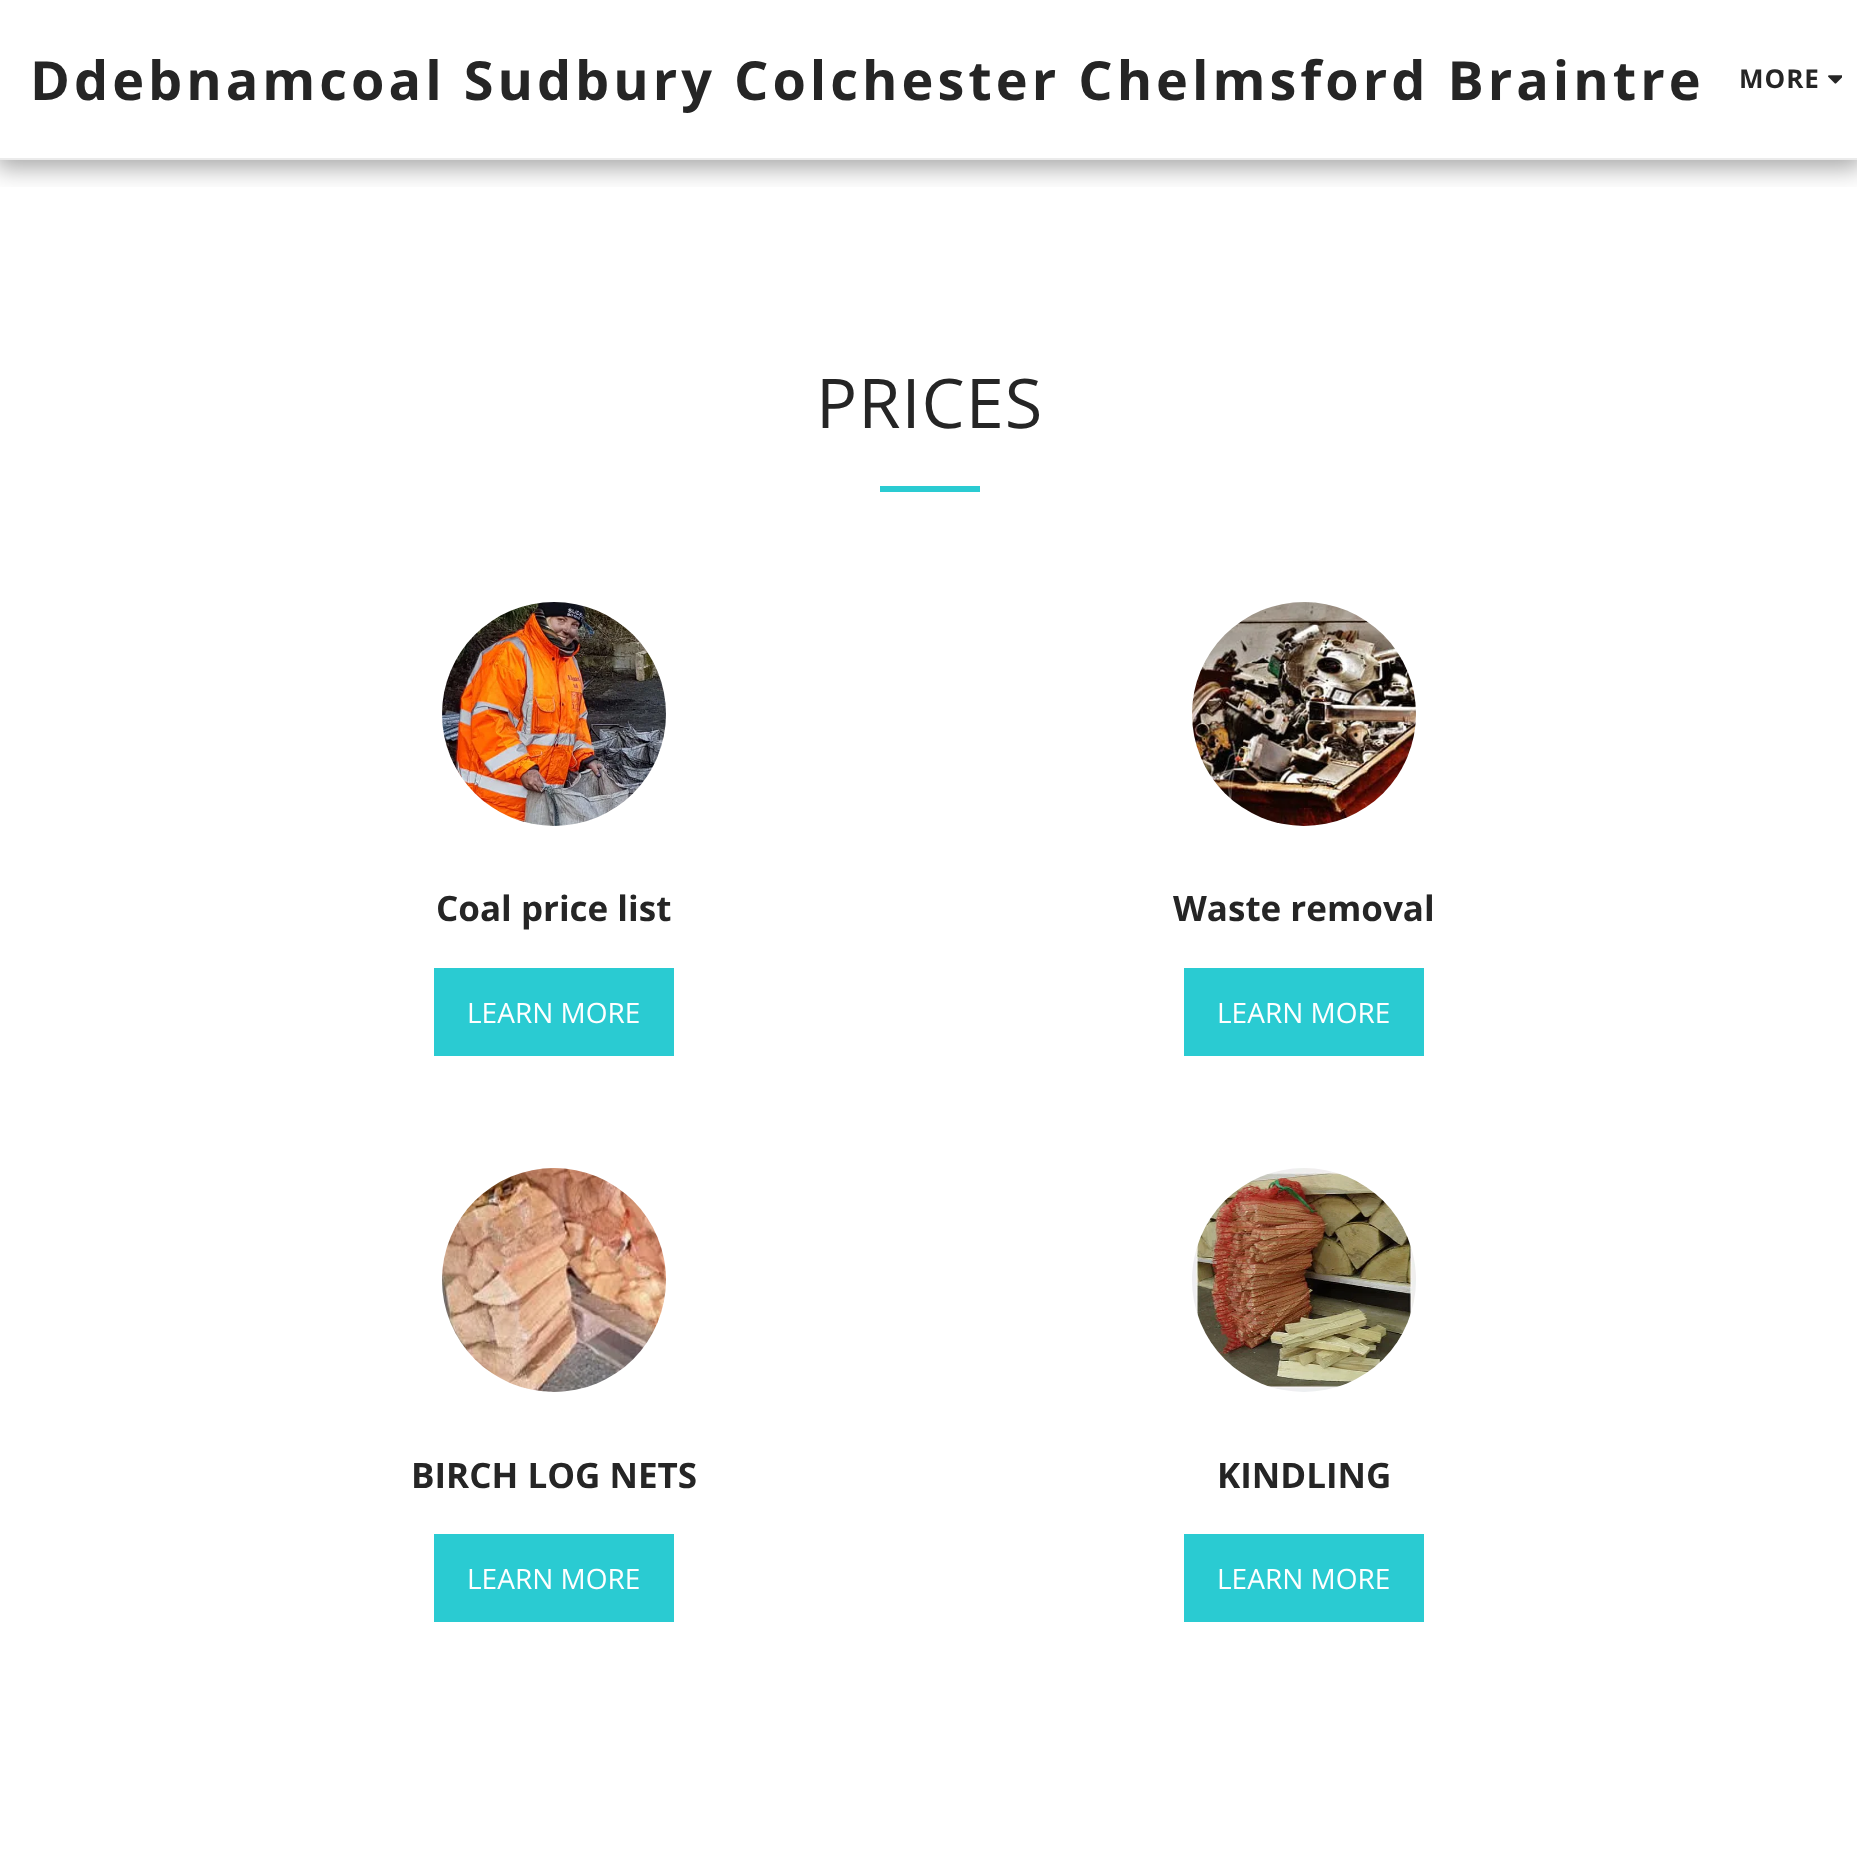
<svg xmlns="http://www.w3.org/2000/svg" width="1857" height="1857">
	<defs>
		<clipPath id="clip1"><rect x="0" y="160" width="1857" height="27" /></clipPath>
	</defs>
	<rect width="100%" height="100%" fill="#FFFFFF" />
	<g clip-path="url(#clip1)">
		<rect x="-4" y="0" width="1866" height="168" fill="#000000" fill-opacity="0.35" filter="blur(12px)" />
	</g>
	<rect x="0" y="158" width="1857" height="2" fill="#EBEBEB" />
	<text x="30" y="100" font-family="Open Sans" font-size="54" font-weight="700" letter-spacing="4" fill="#252525">Ddebnamcoal Sudbury Colchester Chelmsford Braintre</text>
	<text x="1739" y="88" font-family="Open Sans" font-size="26" font-weight="700" letter-spacing="1" fill="#252525">MORE</text>
	<image x="1828" y="75" width="14" height="9" href="assets/img1.png" />
	<text x="816" y="428" font-family="Open Sans" font-size="68.5" letter-spacing="1" fill="#252525">PRICES</text>
	<rect x="880" y="486" width="100" height="6" fill="#2ACBD2" />
	<image x="442" y="602" width="224" height="224" href="assets/img2.png" />
	<text x="436" y="921" font-family="Open Sans" font-size="35" font-weight="700" fill="#252525">Coal price list</text>
	<rect x="434" y="968" width="240" height="88" fill="#2ACBD2" />
	<text x="467" y="1023" font-family="Open Sans" font-size="28" fill="#FFFFFF">LEARN MORE</text>
	<image x="1192" y="602" width="224" height="224" href="assets/img3.png" />
	<text x="1173" y="921" font-family="Open Sans" font-size="35" font-weight="700" fill="#252525">Waste removal</text>
	<rect x="1184" y="968" width="240" height="88" fill="#2ACBD2" />
	<text x="1217" y="1023" font-family="Open Sans" font-size="28" fill="#FFFFFF">LEARN MORE</text>
	<image x="442" y="1168" width="224" height="224" href="assets/img4.png" />
	<text x="411" y="1488" font-family="Open Sans" font-size="35" font-weight="700" fill="#252525">BIRCH LOG NETS</text>
	<rect x="434" y="1534" width="240" height="88" fill="#2ACBD2" />
	<text x="467" y="1589" font-family="Open Sans" font-size="28" fill="#FFFFFF">LEARN MORE</text>
	<image x="1192" y="1168" width="224" height="224" href="assets/img5.png" />
	<text x="1217" y="1488" font-family="Open Sans" font-size="35" font-weight="700" fill="#252525">KINDLING</text>
	<rect x="1184" y="1534" width="240" height="88" fill="#2ACBD2" />
	<text x="1217" y="1589" font-family="Open Sans" font-size="28" fill="#FFFFFF">LEARN MORE</text>
</svg>
